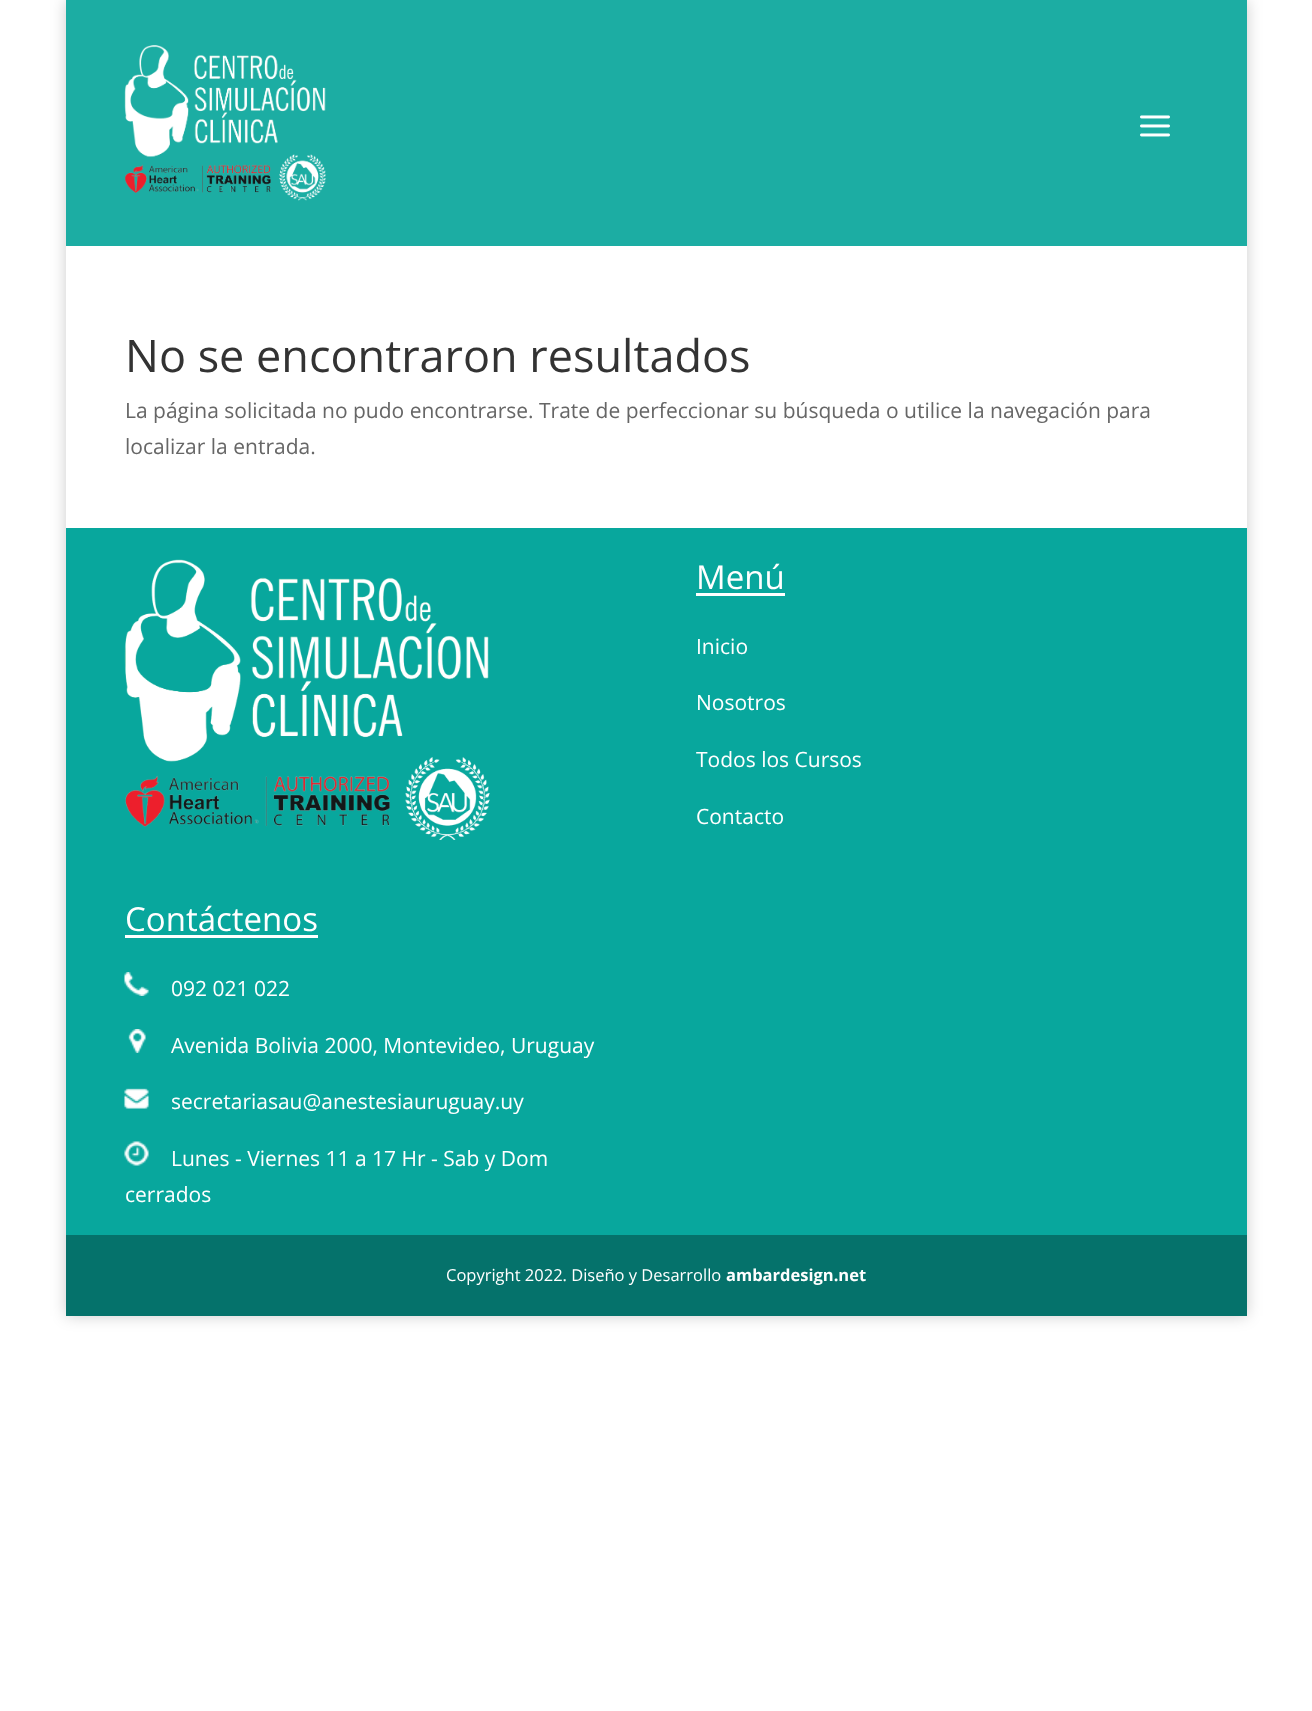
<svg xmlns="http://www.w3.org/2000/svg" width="1312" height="1711">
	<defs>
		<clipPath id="clip1"><path d="M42 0H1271V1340H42ZM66 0H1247V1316H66Z" clip-rule="evenodd" /></clipPath>
	</defs>
	<rect width="100%" height="100%" fill="#FFFFFF" />
	<g clip-path="url(#clip1)">
		<rect x="66" y="0" width="1181" height="1316" fill="#000000" fill-opacity="0.2" filter="blur(7.5px)" />
	</g>
	<rect x="66" y="0" width="1181" height="246" fill="#00A398" fill-opacity="0.89" />
	<image x="124" y="45" width="203" height="156" href="assets/img1.png" />
	<image x="1140" y="115" width="30" height="22" href="assets/img2.png" />
	<rect x="1246" y="246" width="1" height="219" fill="#FFFFFF" />
	<text x="125" y="372" font-family="Open Sans" font-size="45" fill="#333333">No se encontraron resultados</text>
	<g font-family="Open Sans" font-size="21" fill="#666666">
		<text x="125" y="418">La página solicitada no pudo encontrarse. Trate de perfeccionar su búsqueda o utilice la navegación para</text>
		<text x="125" y="454">localizar la entrada.</text>
	</g>
	<rect x="66" y="528" width="1181" height="707" fill="#08A79D" />
	<image x="124" y="559" width="366" height="281" href="assets/img3.png" />
	<text x="696" y="589" font-family="Open Sans" font-size="33" fill="#FFFFFF">Menú</text>
	<rect x="696" y="593" width="89" height="3" fill="#FFFFFF" />
	<g font-family="Open Sans" font-size="21" fill="#FFFFFF">
		<text x="696" y="654">Inicio</text>
		<text x="696" y="710">Nosotros</text>
		<text x="696" y="767">Todos los Cursos</text>
		<text x="696" y="824">Contacto</text>
	</g>
	<text x="125" y="931" font-family="Open Sans" font-size="33" fill="#FFFFFF">Contáctenos</text>
	<rect x="125" y="935" width="193" height="3" fill="#FFFFFF" />
	<image x="124" y="972" width="25" height="24" href="assets/img4.png" />
	<text x="171" y="996" font-family="Open Sans" font-size="21" fill="#FFFFFF">092 021 022</text>
	<image x="128" y="1029" width="18" height="24" href="assets/img5.png" />
	<text x="171" y="1053" font-family="Open Sans" font-size="21" fill="#FFFFFF">Avenida Bolivia 2000, Montevideo, Uruguay</text>
	<image x="124" y="1088" width="25" height="21" href="assets/img6.png" />
	<text x="171" y="1109" font-family="Open Sans" font-size="21" fill="#FFFFFF">secretariasau@anestesiauruguay.uy</text>
	<image x="124" y="1141" width="25" height="25" href="assets/img7.png" />
	<g font-family="Open Sans" font-size="21" fill="#FFFFFF">
		<text x="171" y="1166">Lunes - Viernes 11 a 17 Hr - Sab y Dom</text>
		<text x="125" y="1202">cerrados</text>
	</g>
	<rect x="66" y="1235" width="1181" height="81" fill="#05726B" />
	<text x="446" y="1281" font-family="Open Sans" font-size="16.5" fill="#FFFFFF">Copyright 2022. Diseño y Desarrollo</text>
	<text x="726" y="1281" font-family="Open Sans" font-size="16.5" font-weight="700" fill="#FFFFFF">ambardesign.net</text>
</svg>
